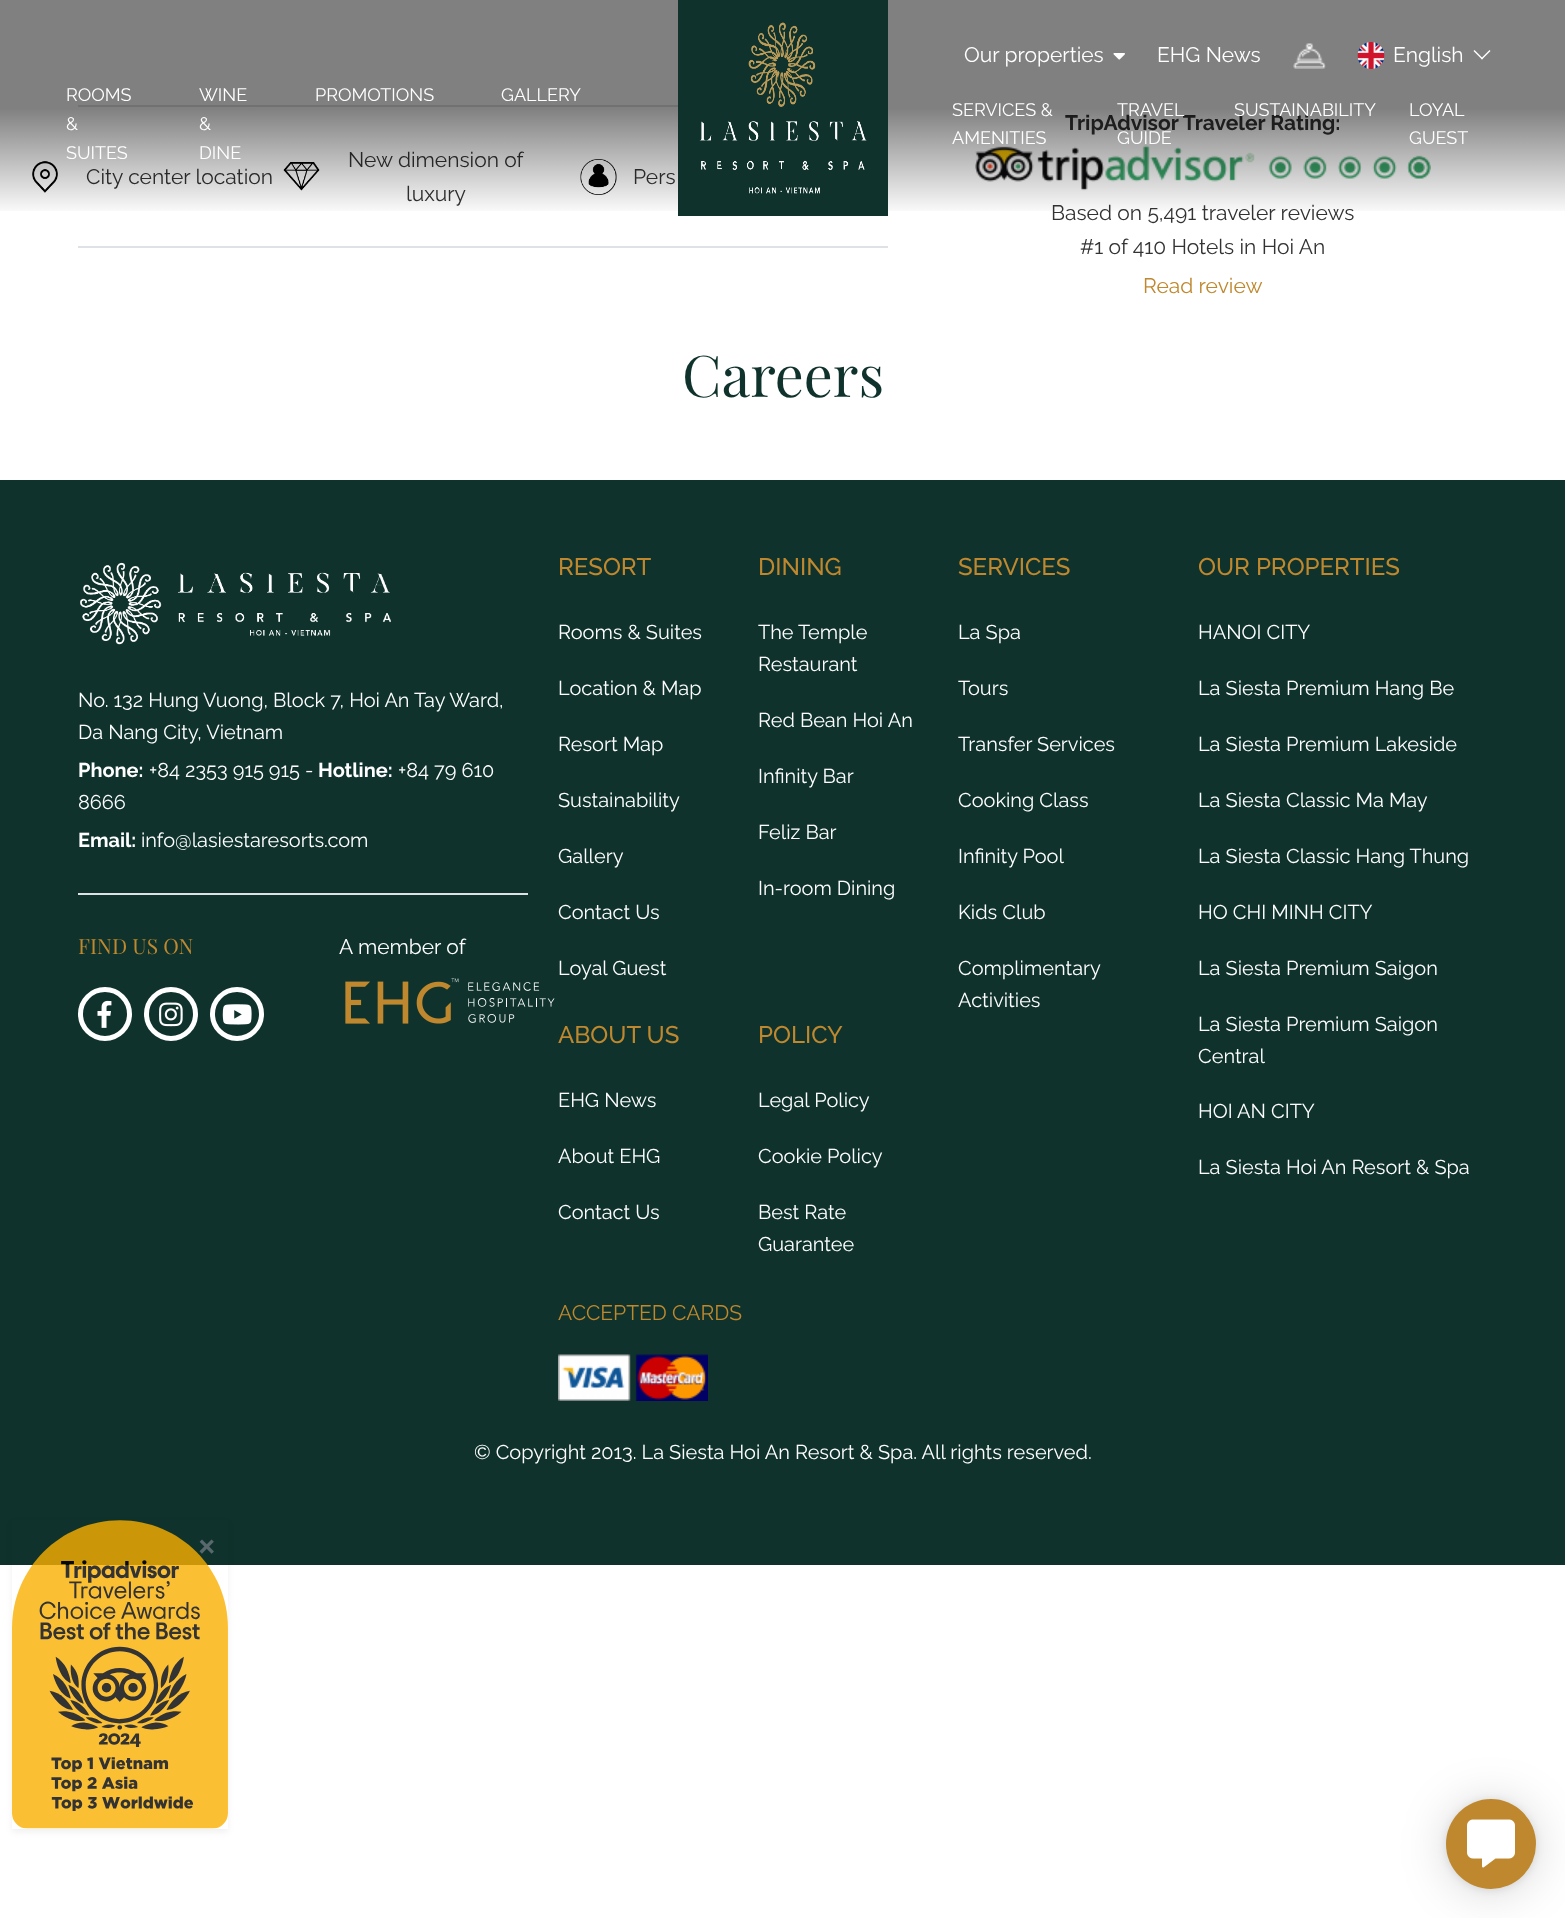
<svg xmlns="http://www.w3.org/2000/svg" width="1565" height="1918">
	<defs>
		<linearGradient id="g1" gradientUnits="userSpaceOnUse" x1="783" y1="0" x2="783" y2="216"><stop offset="0.5" stop-color="#000000" stop-opacity="0.5" /><stop offset="1" stop-color="#000000" stop-opacity="0" /></linearGradient>
		<clipPath id="clip1"><path d="M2 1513H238V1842H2ZM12 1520H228V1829H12Z" clip-rule="evenodd" /></clipPath>
	</defs>
	<rect width="100%" height="100%" fill="#FFFFFF" />
	<rect x="78" y="105" width="600" height="2" fill="#DEE2E6" />
	<image x="32" y="161" width="26" height="32" href="assets/img5.png" />
	<text x="86" y="184" font-family="Raleway" font-size="21" fill="#333333">City center location</text>
	<image x="283" y="162" width="37" height="29" href="assets/img6.png" />
	<g font-family="Raleway" font-size="21" fill="#333333">
		<text x="348" y="167">New dimension of</text>
		<text x="406" y="201">luxury</text>
	</g>
	<image x="580" y="159" width="37" height="36" href="assets/img7.png" />
	<text x="633" y="184" font-family="Raleway" font-size="21" fill="#333333">Pers</text>
	<text x="1065" y="130" font-family="Raleway" font-size="21" font-weight="700" fill="#333333">TripAdvisor Traveler Rating:</text>
	<image x="975" y="145" width="456" height="46" href="assets/img8.png" />
	<text x="1051" y="220" font-family="Raleway" font-size="21" fill="#333333">Based on 5,491 traveler reviews</text>
	<rect x="0" y="0" width="1565" height="211" fill="url(#g1)" />
	<g font-family="Raleway" font-size="18" fill="#FFFFFF">
		<text x="66" y="101">ROOMS</text>
		<text x="66" y="130">&amp;</text>
		<text x="66" y="159">SUITES</text>
		<text x="199" y="101">WINE</text>
		<text x="199" y="130">&amp;</text>
		<text x="199" y="159">DINE</text>
		<text x="315" y="101">PROMOTIONS</text>
		<text x="501" y="101">GALLERY</text>
	</g>
	<image x="678" y="0" width="210" height="216" href="assets/img1.png" />
	<text x="964" y="62" font-family="Raleway" font-size="21" fill="#FFFFFF">Our properties</text>
	<image x="1113" y="53" width="12" height="7" href="assets/img2.png" />
	<text x="1157" y="62" font-family="Raleway" font-size="21" fill="#FFFFFF">EHG News</text>
	<image x="1293" y="43" width="33" height="26" href="assets/img3.png" />
	<image x="1357" y="42" width="28" height="27" href="assets/img4.png" />
	<text x="1393" y="62" font-family="Raleway" font-size="21" fill="#FFFFFF">English</text>
	<path d="M1489.5 50L1490.5 51L1482 59.5L1481 58.5Z" fill="#FFFFFF" />
	<path d="M1474.5 50L1483 58.5L1482 59.5L1473.5 51Z" fill="#FFFFFF" />
	<g font-family="Raleway" font-size="18" fill="#FFFFFF">
		<text x="952" y="116">SERVICES &amp;</text>
		<text x="952" y="144">AMENITIES</text>
		<text x="1117" y="116">TRAVEL</text>
		<text x="1117" y="144">GUIDE</text>
		<text x="1234" y="116">SUSTAINABILITY</text>
		<text x="1409" y="116">LOYAL</text>
		<text x="1409" y="144">GUEST</text>
	</g>
	<rect x="78" y="246" width="810" height="2" fill="#DEE2E6" />
	<text x="1080" y="254" font-family="Raleway" font-size="21" fill="#333333">#1 of 410 Hotels in Hoi An</text>
	<text x="1143" y="293" font-family="Raleway" font-size="21" fill="#BF882E">Read review</text>
	<text x="682" y="397" font-family="Playfair Display" font-size="57.5" fill="#0F332C">Careers</text>
	<rect x="0" y="480" width="1565" height="1085" fill="#0F332C" />
	<image x="80" y="562" width="311" height="83" href="assets/img9.png" />
	<g font-family="Raleway" font-size="19.95" fill="#FFFFFF">
		<text x="78" y="707">No. 132 Hung Vuong, Block 7, Hoi An Tay Ward,</text>
		<text x="78" y="739">Da Nang City, Vietnam</text>
	</g>
	<text x="78" y="777" font-family="Raleway" font-size="19.95" font-weight="700" fill="#FFFFFF">Phone:</text>
	<text x="149" y="777" font-family="Raleway" font-size="19.95" fill="#FFFFFF">+84 2353 915 915 -</text>
	<text x="318" y="777" font-family="Raleway" font-size="19.95" font-weight="700" fill="#FFFFFF">Hotline:</text>
	<g font-family="Raleway" font-size="19.95" fill="#FFFFFF">
		<text x="398" y="777">+84 79 610</text>
		<text x="78" y="809">8666</text>
	</g>
	<text x="78" y="847" font-family="Raleway" font-size="19.95" font-weight="700" fill="#FFFFFF">Email:</text>
	<text x="141" y="847" font-family="Raleway" font-size="19.95" fill="#FFFFFF">info@lasiestaresorts.com</text>
	<rect x="78" y="893" width="450" height="2" fill="#DEE2E6" />
	<text x="78" y="954" font-family="Playfair Display" font-size="21" fill="#BF882E">FIND US ON</text>
	<circle cx="105" cy="1014" r="24.5" fill="none" stroke="#FFFFFF" stroke-width="5" />
	<image x="97" y="1000" width="15" height="28" href="assets/img10.png" />
	<circle cx="171" cy="1014" r="24.5" fill="none" stroke="#FFFFFF" stroke-width="5" />
	<image x="159" y="1002" width="24" height="25" href="assets/img11.png" />
	<circle cx="237" cy="1014" r="24.5" fill="none" stroke="#FFFFFF" stroke-width="5" />
	<image x="222" y="1004" width="30" height="21" href="assets/img12.png" />
	<text x="339" y="954" font-family="Raleway" font-size="21" fill="#FFFFFF">A member of</text>
	<image x="345" y="978" width="210" height="46" href="assets/img13.png" />
	<text x="558" y="575" font-family="Raleway" font-size="24" font-weight="500" fill="#BF882E">RESORT</text>
	<g font-family="Raleway" font-size="19.95" fill="#FFFFFF">
		<text x="558" y="639">Rooms &amp; Suites</text>
		<text x="558" y="695">Location &amp; Map</text>
		<text x="558" y="751">Resort Map</text>
		<text x="558" y="807">Sustainability</text>
		<text x="558" y="863">Gallery</text>
		<text x="558" y="919">Contact Us</text>
		<text x="558" y="975">Loyal Guest</text>
	</g>
	<text x="758" y="575" font-family="Raleway" font-size="24" font-weight="500" fill="#BF882E">DINING</text>
	<g font-family="Raleway" font-size="19.95" fill="#FFFFFF">
		<text x="758" y="639">The Temple</text>
		<text x="758" y="671">Restaurant</text>
		<text x="758" y="727">Red Bean Hoi An</text>
		<text x="758" y="783">Infinity Bar</text>
		<text x="758" y="839">Feliz Bar</text>
		<text x="758" y="895">In-room Dining</text>
	</g>
	<text x="558" y="1043" font-family="Raleway" font-size="24" font-weight="500" fill="#BF882E">ABOUT US</text>
	<g font-family="Raleway" font-size="19.95" fill="#FFFFFF">
		<text x="558" y="1107">EHG News</text>
		<text x="558" y="1163">About EHG</text>
		<text x="558" y="1219">Contact Us</text>
	</g>
	<text x="758" y="1043" font-family="Raleway" font-size="24" font-weight="500" fill="#BF882E">POLICY</text>
	<g font-family="Raleway" font-size="19.95" fill="#FFFFFF">
		<text x="758" y="1107">Legal Policy</text>
		<text x="758" y="1163">Cookie Policy</text>
		<text x="758" y="1219">Best Rate</text>
		<text x="758" y="1251">Guarantee</text>
	</g>
	<text x="958" y="575" font-family="Raleway" font-size="24" font-weight="500" fill="#BF882E">SERVICES</text>
	<g font-family="Raleway" font-size="19.95" fill="#FFFFFF">
		<text x="958" y="639">La Spa</text>
		<text x="958" y="695">Tours</text>
		<text x="958" y="751">Transfer Services</text>
		<text x="958" y="807">Cooking Class</text>
		<text x="958" y="863">Infinity Pool</text>
		<text x="958" y="919">Kids Club</text>
		<text x="958" y="975">Complimentary</text>
		<text x="958" y="1007">Activities</text>
	</g>
	<text x="1198" y="575" font-family="Raleway" font-size="24" font-weight="500" fill="#BF882E">OUR PROPERTIES</text>
	<g font-family="Raleway" font-size="19.95" fill="#FFFFFF">
		<text x="1198" y="639">HANOI CITY</text>
		<text x="1198" y="695">La Siesta Premium Hang Be</text>
		<text x="1198" y="751">La Siesta Premium Lakeside</text>
		<text x="1198" y="807">La Siesta Classic Ma May</text>
		<text x="1198" y="863">La Siesta Classic Hang Thung</text>
		<text x="1198" y="919">HO CHI MINH CITY</text>
		<text x="1198" y="975">La Siesta Premium Saigon</text>
		<text x="1198" y="1031">La Siesta Premium Saigon</text>
		<text x="1198" y="1063">Central</text>
		<text x="1198" y="1118">HOI AN CITY</text>
		<text x="1198" y="1174">La Siesta Hoi An Resort &amp; Spa</text>
	</g>
	<text x="558" y="1320" font-family="Raleway" font-size="21" fill="#BF882E">ACCEPTED CARDS</text>
	<image x="558" y="1354" width="150" height="47" href="assets/img14.png" />
	<text x="474" y="1459" font-family="Raleway" font-size="19.95" fill="#FFFFFF">© Copyright 2013. La Siesta Hoi An Resort &amp; Spa. All rights reserved.</text>
	<g clip-path="url(#clip1)">
		<rect x="12" y="1523" width="216" height="309" fill="#000000" fill-opacity="0.06" filter="blur(3px)" />
	</g>
	<image x="12" y="1520" width="216" height="309" href="assets/img15.png" />
	<text x="197" y="1558" font-family="Raleway" font-size="42" font-weight="500" fill="#59686D">×</text>
	<rect x="1446" y="1802" width="90" height="90" rx="45" fill="#000000" fill-opacity="0.16" filter="blur(24px)" />
	<rect x="1446" y="1800" width="90" height="90" rx="45" fill="#000000" fill-opacity="0.1" filter="blur(4.5px)" />
	<circle cx="1491" cy="1844" r="45" fill="#BF882E" />
	<image x="1467" y="1819" width="48" height="49" href="assets/img16.png" />
</svg>
